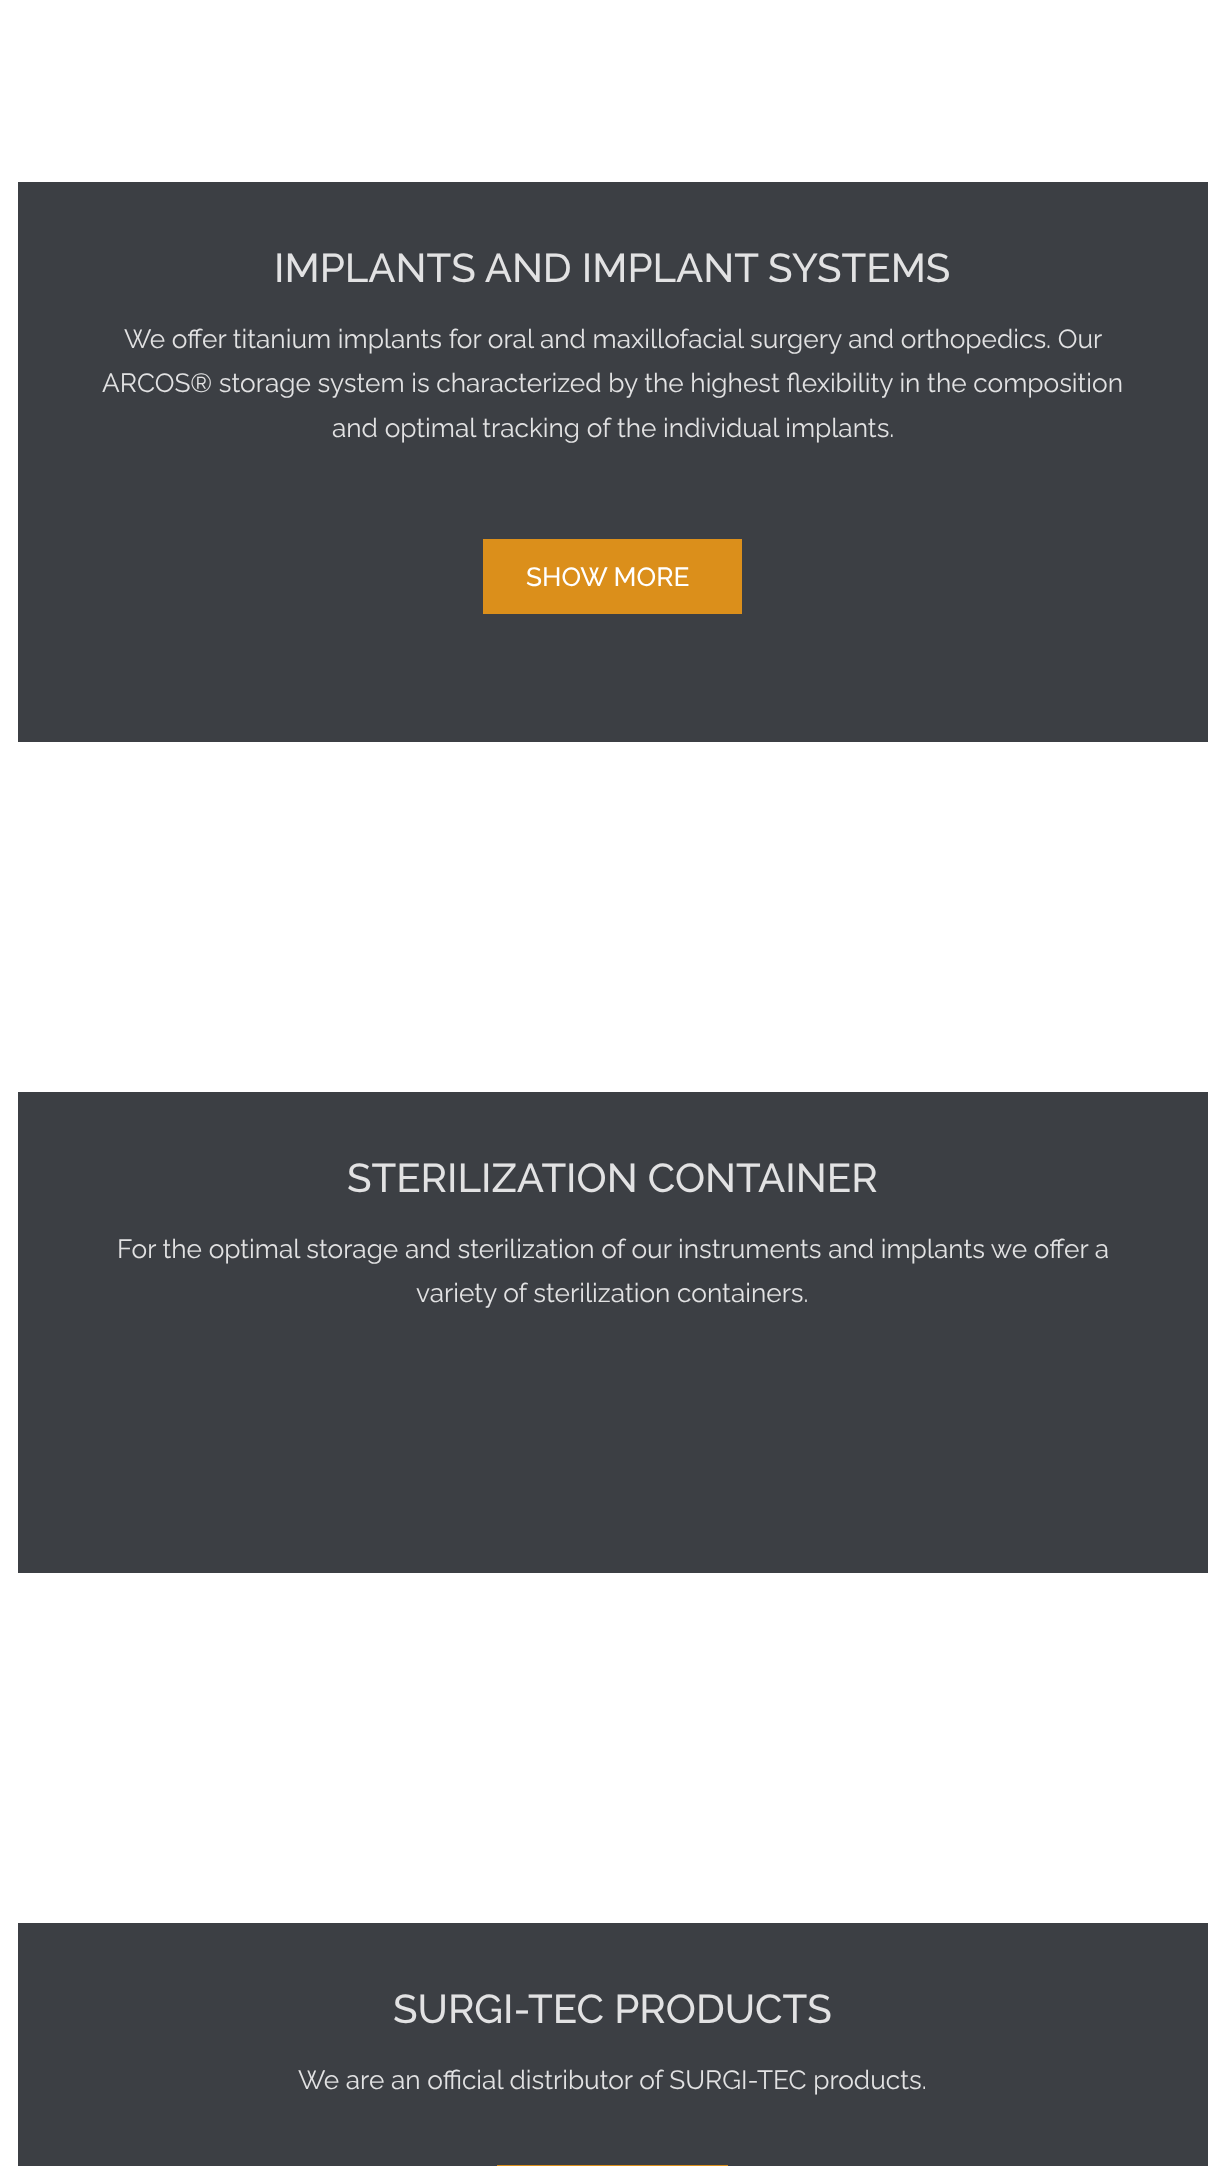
<svg xmlns="http://www.w3.org/2000/svg" width="1225" height="2166">
	<rect width="100%" height="100%" fill="#FFFFFF" />
	<rect x="18" y="182" width="1190" height="560" fill="#3C3F44" />
	<text x="274" y="282" font-family="Raleway" font-size="40.25" font-weight="500" fill="#E2E2E3">IMPLANTS AND IMPLANT SYSTEMS</text>
	<g font-family="Raleway" font-size="26.25" fill="#E2E2E3">
		<text x="124" y="348">We offer titanium implants for oral and maxillofacial surgery and orthopedics. Our</text>
		<text x="102" y="392">ARCOS® storage system is characterized by the highest flexibility in the composition</text>
		<text x="332" y="437">and optimal tracking of the individual implants.</text>
	</g>
	<rect x="483" y="539" width="259" height="75" fill="#DB8F1B" />
	<text x="526" y="586" font-family="Raleway" font-size="26.25" font-weight="500" fill="#FFFFFF">SHOW MORE</text>
	<rect x="18" y="1092" width="1190" height="481" fill="#3C3F44" />
	<text x="347" y="1192" font-family="Raleway" font-size="40.25" font-weight="500" fill="#E2E2E3">STERILIZATION CONTAINER</text>
	<g font-family="Raleway" font-size="26.25" fill="#E2E2E3">
		<text x="117" y="1258">For the optimal storage and sterilization of our instruments and implants we offer a</text>
		<text x="416" y="1302">variety of sterilization containers.</text>
	</g>
	<rect x="18" y="1923" width="1190" height="243" fill="#3C3F44" />
	<text x="393" y="2023" font-family="Raleway" font-size="40.25" font-weight="500" fill="#E2E2E3">SURGI-TEC PRODUCTS</text>
	<text x="298" y="2089" font-family="Raleway" font-size="26.25" fill="#E2E2E3">We are an official distributor of SURGI-TEC products.</text>
	<rect x="497" y="2165" width="231" height="1" fill="#DB8F1B" />
</svg>
